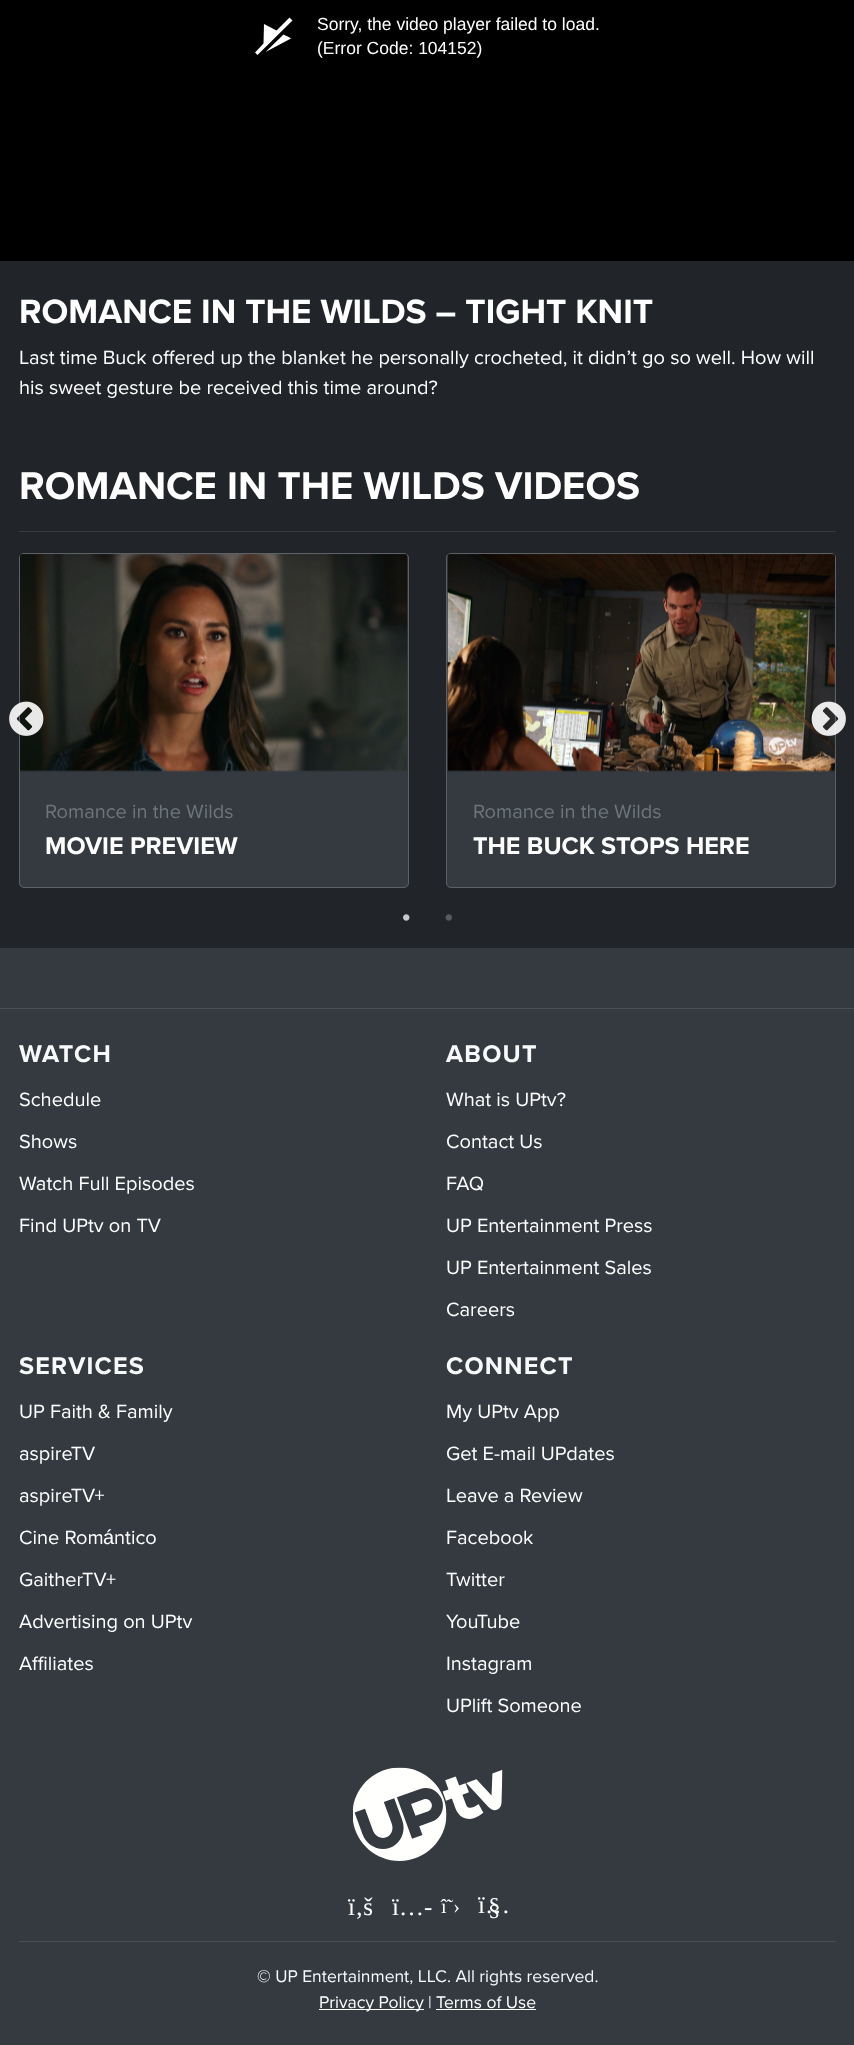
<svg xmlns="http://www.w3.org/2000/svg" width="854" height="2045">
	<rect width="100%" height="100%" fill="#212529" />
	<rect x="0" y="0" width="854" height="261" fill="#000000" />
	<path d="M291 38.5L265.5 52L283.5 34.5C290.5 38 292 38.5 291 39ZM289.5 17.5L276.5 30.5L264 24L263.5 43.5L255 52.5L257.5 55L292.5 20.5Z" fill="#FFFFFF" />
	<g font-family="Liberation Sans" font-size="17.5" fill="#FFFFFF">
		<text x="317" y="30">Sorry, the video player failed to load.</text>
		<text x="317" y="54">(Error Code: 104152)</text>
	</g>
	<text x="19" y="323" font-family="Proxima Nova" font-size="35" font-weight="700" fill="#FFFFFF">ROMANCE IN THE WILDS – TIGHT KNIT</text>
	<g font-family="Proxima Nova" font-size="20" fill="#FFFFFF">
		<text x="19" y="364">Last time Buck offered up the blanket he personally crocheted, it didn’t go so well. How will</text>
		<text x="19" y="394">his sweet gesture be received this time around?</text>
	</g>
	<text x="19" y="499" font-family="Proxima Nova" font-size="40" font-weight="700" fill="#FFFFFF">ROMANCE IN THE WILDS VIDEOS</text>
	<rect x="19" y="531" width="817" height="1" fill="#373B3E" />
	<rect x="19" y="553" width="390" height="335" rx="5" fill="#343A40" />
	<rect x="19.5" y="553.5" width="389" height="334" rx="4.5" fill="none" stroke="#FFFFFF" stroke-opacity="0.2" />
	<image x="20" y="554" width="388" height="218" href="assets/img3.png" />
	<image x="9" y="701" width="35" height="35" href="assets/img1.png" />
	<rect x="446" y="553" width="390" height="335" rx="5" fill="#343A40" />
	<rect x="446.5" y="553.5" width="389" height="334" rx="4.5" fill="none" stroke="#FFFFFF" stroke-opacity="0.2" />
	<image x="447" y="554" width="388" height="218" href="assets/img4.png" />
	<image x="811" y="701" width="35" height="35" href="assets/img2.png" />
	<text x="45" y="818" font-family="Proxima Nova" font-size="20" fill="#6C757D">Romance in the Wilds</text>
	<text x="45" y="854" font-family="Proxima Nova" font-size="25" font-weight="700" fill="#FFFFFF">MOVIE PREVIEW</text>
	<text x="473" y="818" font-family="Proxima Nova" font-size="20" fill="#6C757D">Romance in the Wilds</text>
	<text x="473" y="854" font-family="Proxima Nova" font-size="25" font-weight="700" fill="#FFFFFF">THE BUCK STOPS HERE</text>
	<image x="403" y="914" width="7" height="7" href="assets/img5.png" />
	<image x="445" y="914" width="7" height="7" href="assets/img6.png" />
	<rect x="0" y="948" width="854" height="60" fill="#343A40" />
	<rect x="0" y="1009" width="854" height="1036" fill="#343A40" />
	<rect x="0" y="1008" width="854" height="1" fill="#484E53" />
	<text x="19" y="1062" font-family="Proxima Nova" font-size="25" font-weight="700" letter-spacing="1.25" fill="#F8F9FA">WATCH</text>
	<g font-family="Proxima Nova" font-size="20" fill="#FFFFFF">
		<text x="19" y="1106">Schedule</text>
		<text x="19" y="1148">Shows</text>
		<text x="19" y="1190">Watch Full Episodes</text>
		<text x="19" y="1232">Find UPtv on TV</text>
	</g>
	<text x="446" y="1062" font-family="Proxima Nova" font-size="25" font-weight="700" letter-spacing="1.25" fill="#F8F9FA">ABOUT</text>
	<g font-family="Proxima Nova" font-size="20" fill="#FFFFFF">
		<text x="446" y="1106">What is UPtv?</text>
		<text x="446" y="1148">Contact Us</text>
		<text x="446" y="1190">FAQ</text>
		<text x="446" y="1232">UP Entertainment Press</text>
		<text x="446" y="1274">UP Entertainment Sales</text>
		<text x="446" y="1316">Careers</text>
	</g>
	<text x="19" y="1374" font-family="Proxima Nova" font-size="25" font-weight="700" letter-spacing="1.25" fill="#F8F9FA">SERVICES</text>
	<g font-family="Proxima Nova" font-size="20" fill="#FFFFFF">
		<text x="19" y="1418">UP Faith &amp; Family</text>
		<text x="19" y="1460">aspireTV</text>
		<text x="19" y="1502">aspireTV+</text>
		<text x="19" y="1544">Cine Rom</text>
	</g>
	<text x="103" y="1544" font-family="Liberation Sans" font-size="20" fill="#FFFFFF">á</text>
	<g font-family="Proxima Nova" font-size="20" fill="#FFFFFF">
		<text x="114" y="1544">ntico</text>
		<text x="19" y="1586">GaitherTV+</text>
		<text x="19" y="1628">Advertising on UPtv</text>
		<text x="19" y="1670">Affiliates</text>
	</g>
	<text x="446" y="1374" font-family="Proxima Nova" font-size="25" font-weight="700" letter-spacing="1.25" fill="#F8F9FA">CONNECT</text>
	<g font-family="Proxima Nova" font-size="20" fill="#FFFFFF">
		<text x="446" y="1418">My UPtv App</text>
		<text x="446" y="1460">Get E-mail UPdates</text>
		<text x="446" y="1502">Leave a Review</text>
		<text x="446" y="1544">Facebook</text>
		<text x="446" y="1586">Twitter</text>
		<text x="446" y="1628">YouTube</text>
		<text x="446" y="1670">Instagram</text>
		<text x="446" y="1712">UPlift Someone</text>
	</g>
	<image x="353" y="1767" width="150" height="94" href="assets/img7.png" />
	<g font-family="Liberation Serif" font-size="25" fill="#FFFFFF">
		<text x="348" y="1915">ï‚š</text>
		<text x="392" y="1915">ï…-</text>
	</g>
	<text x="441" y="1913" font-family="Liberation Serif" font-size="20" fill="#FFFFFF">î˜›</text>
	<g font-family="Liberation Serif" font-size="25" fill="#FFFFFF">
		<text x="478" y="1913">ï…</text>
		<text x="488" y="1915">§</text>
	</g>
	<rect x="19" y="1941" width="817" height="1" fill="#484E53" />
	<text x="257" y="1982" font-family="Proxima Nova" font-size="17.5" fill="#F8F9FA">© UP Entertainment, LLC. All rights reserved.</text>
	<rect x="319" y="2009" width="105" height="1" fill="#FFFFFF" />
	<text x="319" y="2008" font-family="Proxima Nova" font-size="17.5" fill="#FFFFFF">Privacy Policy</text>
	<text x="428" y="2008" font-family="Proxima Nova" font-size="17.5" fill="#F8F9FA">|</text>
	<text x="436" y="2008" font-family="Proxima Nova" font-size="17.5" fill="#FFFFFF">Terms of Use</text>
	<rect x="436" y="2009" width="100" height="1" fill="#FFFFFF" />
</svg>
